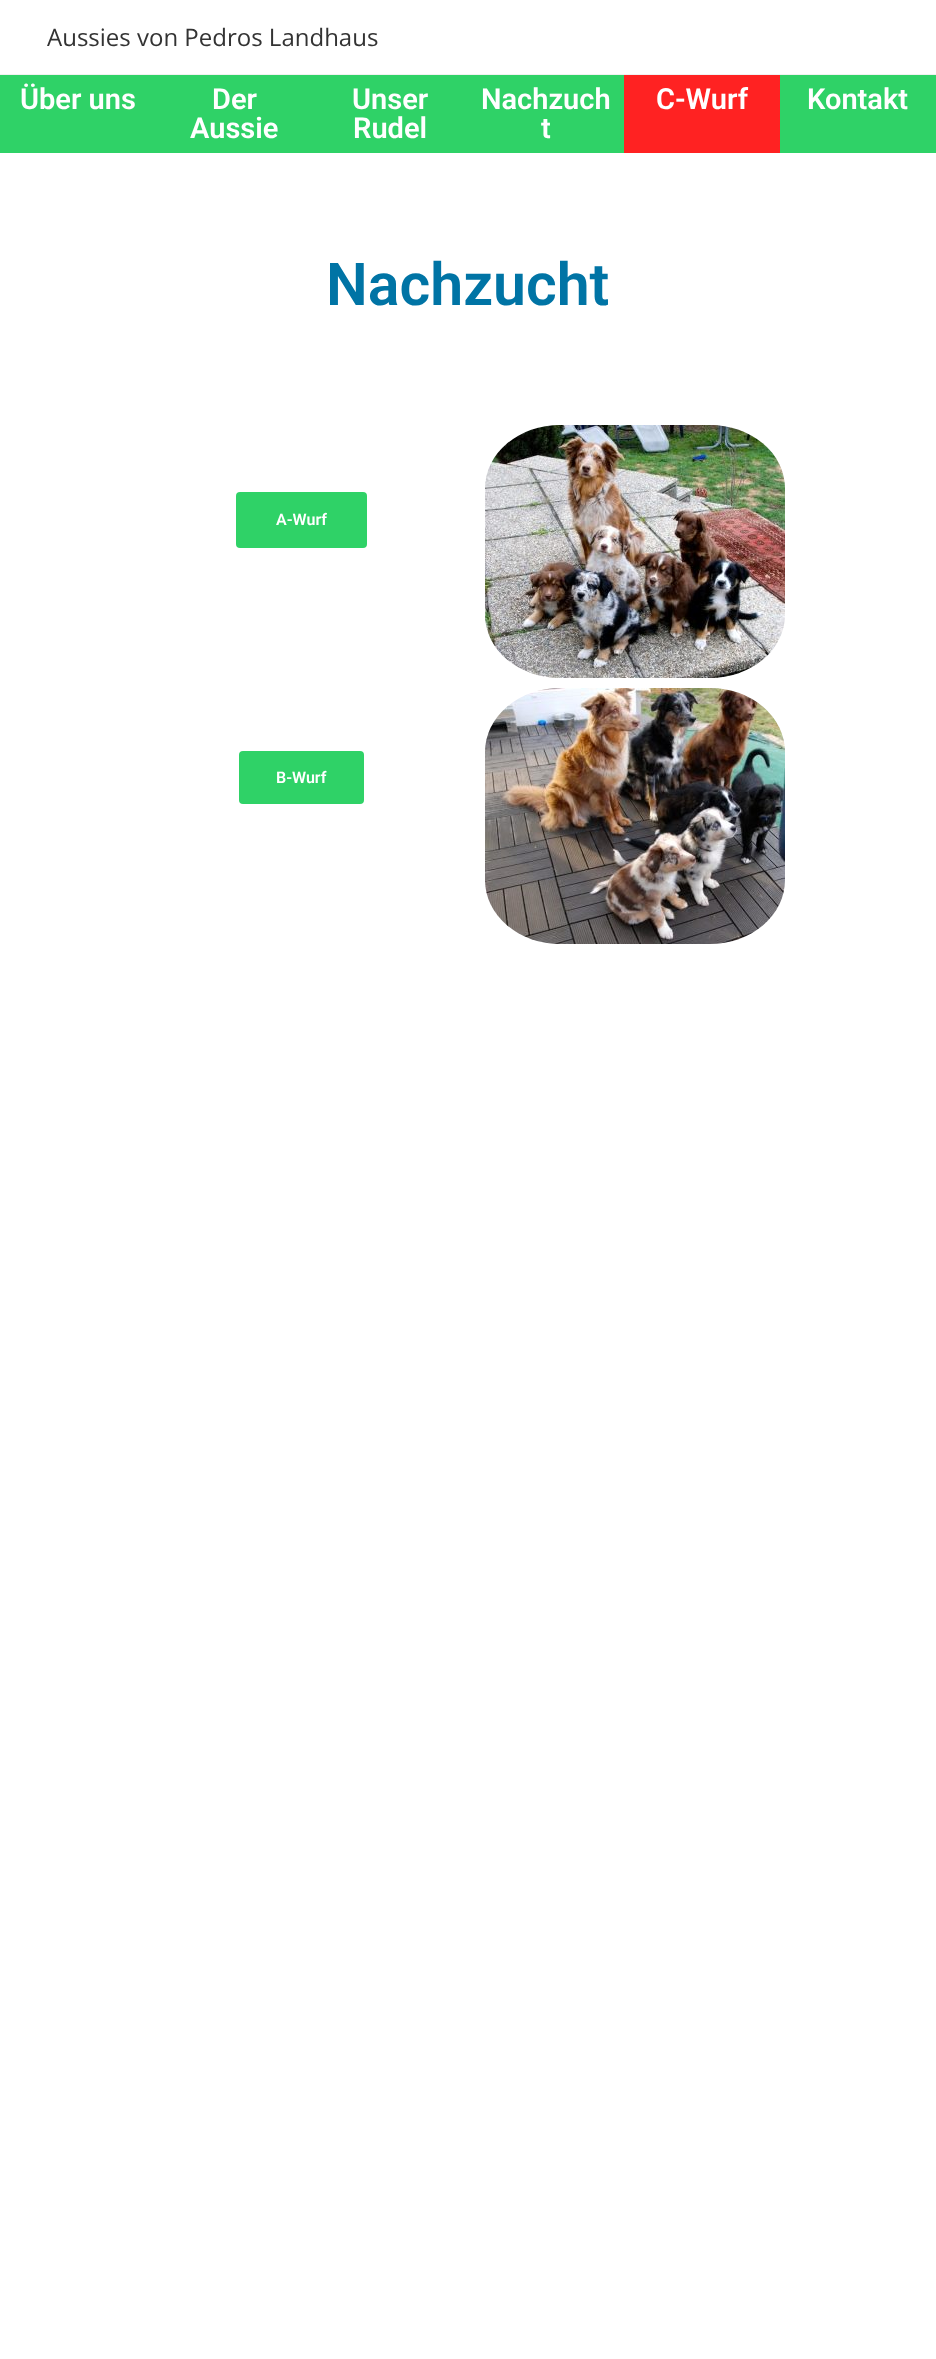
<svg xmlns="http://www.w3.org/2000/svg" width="936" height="2359">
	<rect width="100%" height="100%" fill="#FFFFFF" />
	<rect x="0" y="74" width="936" height="1" fill="#F1F1F1" />
	<text x="47" y="46" font-family="Open Sans" font-size="24" fill="#333333">Aussies von Pedros Landhaus</text>
	<rect x="0" y="75" width="936" height="78" fill="#2FD267" />
	<g font-family="Roboto" font-size="29" font-weight="600" fill="#FFFFFF">
		<text x="20" y="109">Über uns</text>
		<text x="212" y="109">Der</text>
		<text x="190" y="138">Aussie</text>
		<text x="352" y="109">Unser</text>
		<text x="353" y="138">Rudel</text>
		<text x="481" y="109">Nachzuch</text>
		<text x="541" y="138">t</text>
	</g>
	<rect x="624" y="75" width="156" height="78" fill="#FF2222" />
	<g font-family="Roboto" font-size="29" font-weight="600" fill="#FFFFFF">
		<text x="656" y="109">C-Wurf</text>
		<text x="807" y="109">Kontakt</text>
	</g>
	<text x="326" y="305" font-family="Roboto" font-size="59" font-weight="600" fill="#0074A5">Nachzucht</text>
	<rect x="236" y="492" width="131" height="56" rx="4" fill="#2FD267" />
	<text x="276" y="525" font-family="Roboto" font-size="16" font-weight="600" fill="#FFFFFF">A-Wurf</text>
	<image x="485" y="425" width="300" height="253" href="assets/img1.png" />
	<rect x="239" y="751" width="125" height="53" rx="4" fill="#2FD267" />
	<text x="276" y="783" font-family="Roboto" font-size="16" font-weight="600" fill="#FFFFFF">B-Wurf</text>
	<image x="485" y="688" width="300" height="256" href="assets/img2.png" />
</svg>
